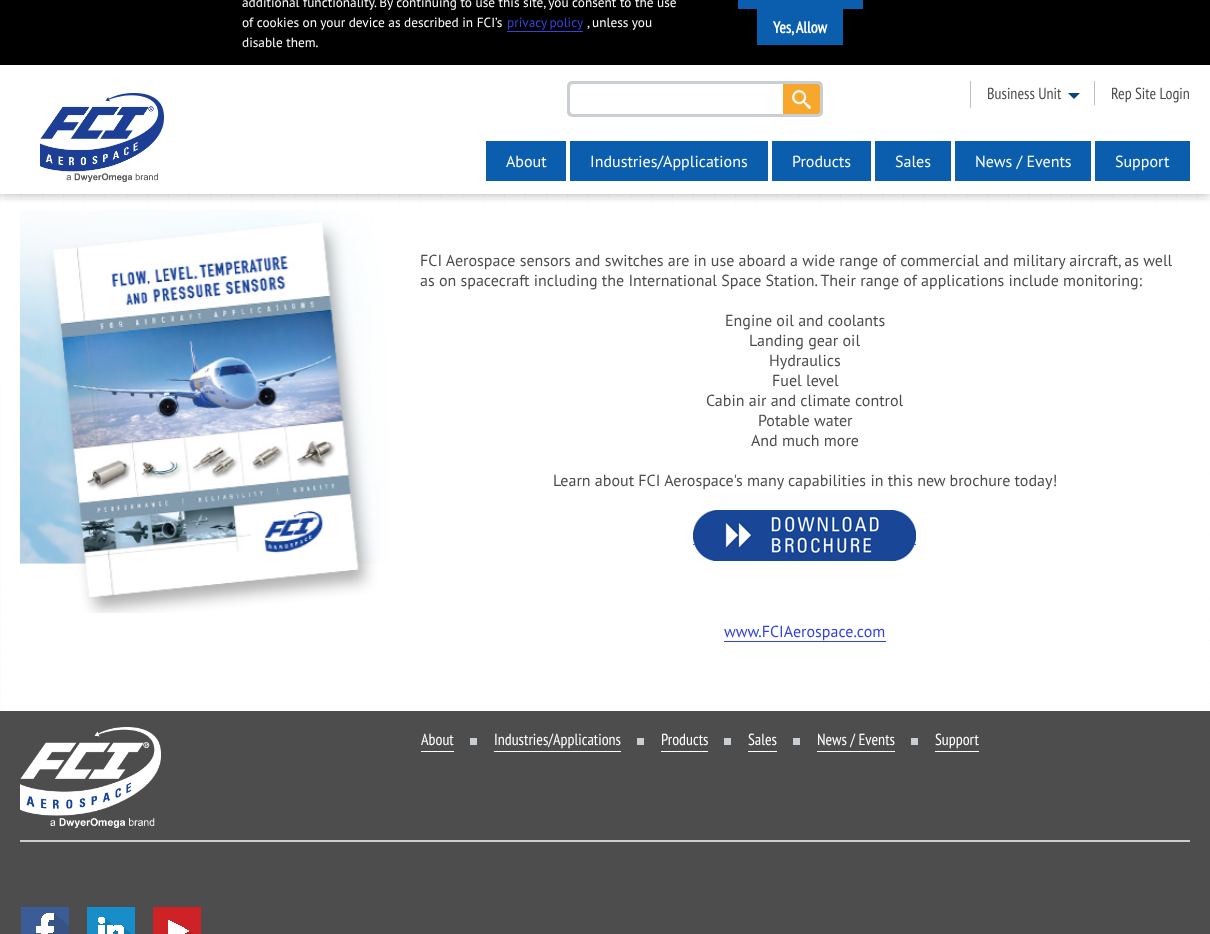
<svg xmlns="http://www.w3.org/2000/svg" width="1210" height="934">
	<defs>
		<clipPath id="clip1"><rect x="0" y="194" width="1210" height="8" /></clipPath>
	</defs>
	<rect width="100%" height="100%" fill="#FFFFFF" />
	<image x="0" y="194" width="1210" height="517" href="assets/img1.png" />
	<rect x="-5" y="200" width="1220" height="521" fill="#FFFFFF" filter="blur(5px)" />
	<image x="20" y="210" width="370" height="403" href="assets/img4.png" />
	<g clip-path="url(#clip1)">
		<rect x="0" y="-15" width="1210" height="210" fill="#141414" fill-opacity="0.3" filter="blur(5px)" />
	</g>
	<rect x="0" y="0" width="1210" height="65" fill="#000000" />
	<g font-family="PT Sans" font-size="13.3" fill="#FFFFFF">
		<text x="242" y="7">additional functionality. By continuing to use this site, you consent to the use</text>
		<text x="242" y="27">of cookies on your device as described in FCI’s</text>
	</g>
	<text x="507" y="27" word-spacing="-1" font-family="PT Sans" font-size="13.3" fill="#3344DD">privacy policy</text>
	<rect x="507" y="31" width="76" height="1" fill="#3344DD" />
	<g font-family="PT Sans" font-size="13.3" fill="#FFFFFF">
		<text x="587" y="27">, unless you</text>
		<text x="242" y="47">disable them.</text>
	</g>
	<rect x="738" y="0" width="125" height="9" fill="#0A5EAD" />
	<rect x="757" y="9" width="86" height="36" fill="#0A5EAD" />
	<text x="773" y="33" font-family="PT Sans Narrow" font-size="16" font-weight="700" fill="#FFFFFF">Yes, Allow</text>
	<image x="40" y="93" width="124" height="89" href="assets/img2.png" />
	<rect x="567" y="81" width="256" height="36" rx="5" fill="#C9CED2" />
	<path d="M573 84H783V114H573C571.5 114 570 112.5 570 111V87C570 85.5 571.5 84 573 84Z" fill="#FFFFFF" />
	<path d="M783 84H817C818.5 84 820 85.5 820 87V111C820 112.5 818.5 114 817 114H783Z" fill="#F7A72C" />
	<image x="792" y="90" width="19" height="19" href="assets/img3.png" />
	<rect x="970" y="81" width="1" height="27" fill="#C0C0C0" />
	<rect x="1094" y="81" width="1" height="24" fill="#C0C0C0" />
	<text x="987" y="99" font-family="PT Sans Narrow" font-size="16" fill="#4D4D4D">Business Unit</text>
	<path d="M1068 93H1080L1074 99Z" fill="#07447D" />
	<text x="1111" y="99" font-family="PT Sans Narrow" font-size="16" fill="#4D4D4D">Rep Site Login</text>
	<rect x="486" y="141" width="80" height="40" fill="#0A5EAD" />
	<text x="506" y="167" font-family="PT Sans" font-size="16" fill="#FFFFFF">About</text>
	<rect x="570" y="141" width="198" height="40" fill="#0A5EAD" />
	<text x="590" y="167" font-family="PT Sans" font-size="16" fill="#FFFFFF">Industries/Applications</text>
	<rect x="772" y="141" width="99" height="40" fill="#0A5EAD" />
	<text x="792" y="167" font-family="PT Sans" font-size="16" fill="#FFFFFF">Products</text>
	<rect x="875" y="141" width="76" height="40" fill="#0A5EAD" />
	<text x="895" y="167" font-family="PT Sans" font-size="16" fill="#FFFFFF">Sales</text>
	<rect x="955" y="141" width="136" height="40" fill="#0A5EAD" />
	<text x="975" y="167" font-family="PT Sans" font-size="16" fill="#FFFFFF">News / Events</text>
	<rect x="1095" y="141" width="95" height="40" fill="#0A5EAD" />
	<text x="1115" y="167" font-family="PT Sans" font-size="16" fill="#FFFFFF">Support</text>
	<g font-family="PT Sans" font-size="16" fill="#4D4D4D">
		<text x="420" y="266">FCI Aerospace sensors and switches are in use aboard a wide range of commercial and military aircraft, as well</text>
		<text x="420" y="286">as on spacecraft including the International Space Station. Their range of applications include monitoring:</text>
		<text x="725" y="326">Engine oil and coolants</text>
		<text x="749" y="346">Landing gear oil</text>
		<text x="769" y="366">Hydraulics</text>
		<text x="772" y="386">Fuel level</text>
		<text x="706" y="406">Cabin air and climate control</text>
		<text x="758" y="426">Potable water</text>
		<text x="751" y="446">And much more</text>
		<text x="553" y="486">Learn about FCI Aerospace's many capabilities in this new brochure today!</text>
	</g>
	<rect x="693" y="544" width="223" height="1" fill="#3344DD" />
	<image x="693" y="510" width="223" height="51" href="assets/img5.png" />
	<text x="724" y="637" font-family="PT Sans" font-size="16" fill="#3344DD">www.FCIAerospace.com</text>
	<rect x="724" y="641" width="162" height="1" fill="#3344DD" />
	<rect x="0" y="711" width="1210" height="223" fill="#4D4D4D" />
	<rect x="20" y="840" width="1170" height="2" fill="#C9CED2" />
	<image x="20" y="727" width="141" height="101" href="assets/img6.png" />
	<rect x="421" y="751" width="33" height="1" fill="#FFFFFF" />
	<text x="421" y="745" font-family="PT Sans Narrow" font-size="16" fill="#FFFFFF">About</text>
	<rect x="470" y="738" width="7" height="7" fill="#C9CED2" />
	<rect x="494" y="751" width="127" height="1" fill="#FFFFFF" />
	<text x="494" y="745" font-family="PT Sans Narrow" font-size="16" fill="#FFFFFF">Industries/Applications</text>
	<rect x="637" y="738" width="7" height="7" fill="#C9CED2" />
	<rect x="661" y="751" width="47" height="1" fill="#FFFFFF" />
	<text x="661" y="745" font-family="PT Sans Narrow" font-size="16" fill="#FFFFFF">Products</text>
	<rect x="724" y="738" width="7" height="7" fill="#C9CED2" />
	<rect x="748" y="751" width="29" height="1" fill="#FFFFFF" />
	<text x="748" y="745" font-family="PT Sans Narrow" font-size="16" fill="#FFFFFF">Sales</text>
	<rect x="793" y="738" width="7" height="7" fill="#C9CED2" />
	<rect x="817" y="751" width="78" height="1" fill="#FFFFFF" />
	<text x="817" y="745" font-family="PT Sans Narrow" font-size="16" fill="#FFFFFF">News / Events</text>
	<rect x="911" y="738" width="7" height="7" fill="#C9CED2" />
	<rect x="935" y="751" width="44" height="1" fill="#FFFFFF" />
	<text x="935" y="745" font-family="PT Sans Narrow" font-size="16" fill="#FFFFFF">Support</text>
	<image x="21" y="907" width="48" height="27" href="assets/img7.png" />
	<image x="87" y="907" width="48" height="27" href="assets/img8.png" />
	<image x="153" y="907" width="48" height="27" href="assets/img9.png" />
</svg>
